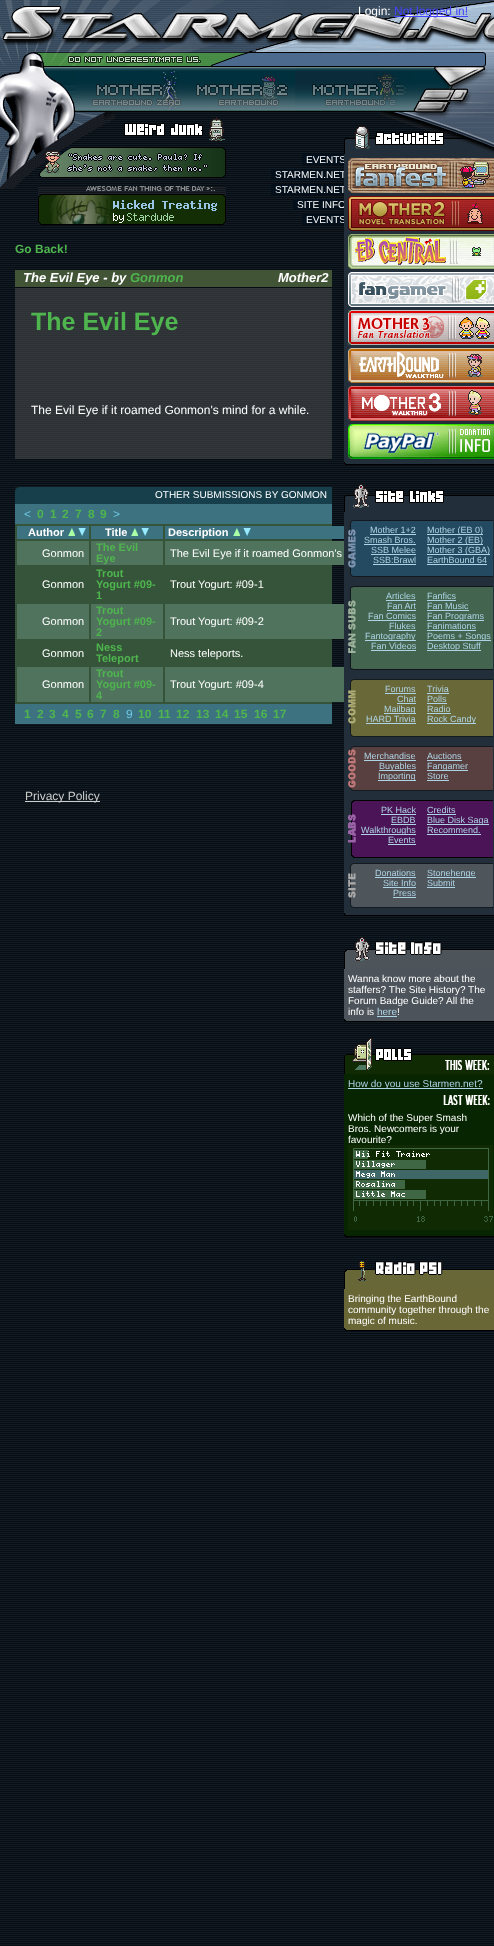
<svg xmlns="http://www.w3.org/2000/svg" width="494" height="1946">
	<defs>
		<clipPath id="clip1"><rect x="170" y="579" width="255" height="11" /></clipPath>
		<clipPath id="clip2"><rect x="170" y="616" width="255" height="11" /></clipPath>
		<clipPath id="clip3"><rect x="170" y="679" width="255" height="11" /></clipPath>
	</defs>
	<rect width="100%" height="100%" fill="#FFFFFF" />
	<image x="0" y="111" width="494" height="1835" href="assets/img1.png" />
	<image x="76" y="52" width="407" height="59" href="assets/img2.png" />
	<image x="0" y="0" width="494" height="52" href="assets/img3.png" />
	<text x="358" y="15" font-family="Liberation Sans" font-size="12" fill="#FFFFFF">Login:</text>
	<rect x="394" y="16" width="74" height="1" fill="#4444FF" />
	<text x="394" y="15" font-family="Liberation Sans" font-size="12" fill="#4444FF">Not logged in!</text>
	<image x="0" y="52" width="249" height="60" href="assets/img4.png" />
	<image x="80" y="69" width="104" height="43" href="assets/img5.png" />
	<image x="80" y="69" width="101" height="38" href="assets/img6.png" />
	<image x="184" y="69" width="111" height="43" href="assets/img7.png" />
	<image x="187" y="69" width="107" height="37" href="assets/img8.png" />
	<image x="295" y="68" width="118" height="44" href="assets/img9.png" />
	<image x="296" y="69" width="117" height="40" href="assets/img10.png" />
	<image x="373" y="52" width="121" height="60" href="assets/img11.png" />
	<image x="0" y="112" width="115" height="77" href="assets/img12.png" />
	<image x="124" y="117" width="101" height="24" href="assets/img13.png" />
	<image x="39" y="147" width="187" height="31" href="assets/img14.png" />
	<image x="38" y="186" width="188" height="39" href="assets/img15.png" />
	<rect x="302" y="154" width="42" height="11" fill="#03101B" />
	<text x="306" y="163" font-family="Liberation Sans" font-size="10" fill="#FFFFFF">EVENTS</text>
	<rect x="271" y="169" width="73" height="11" fill="#03101B" />
	<text x="275" y="178" font-family="Liberation Sans" font-size="10" fill="#FFFFFF">STARMEN.NET</text>
	<rect x="271" y="184" width="73" height="11" fill="#03101B" />
	<text x="275" y="193" font-family="Liberation Sans" font-size="10" fill="#FFFFFF">STARMEN.NET</text>
	<rect x="293" y="199" width="51" height="11" fill="#03101B" />
	<text x="297" y="208" font-family="Liberation Sans" font-size="10" fill="#FFFFFF">SITE INFO</text>
	<rect x="302" y="214" width="42" height="11" fill="#03101B" />
	<text x="306" y="223" font-family="Liberation Sans" font-size="10" fill="#FFFFFF">EVENTS</text>
	<text x="15" y="253" font-family="Liberation Sans" font-size="12" font-weight="700" fill="#4FB54F">Go Back!</text>
	<rect x="15" y="270" width="317" height="17" fill="#415436" />
	<text x="23" y="282" font-family="Liberation Sans" font-size="13" font-weight="700" font-style="italic" fill="#FFFFFF">The Evil Eye - by</text>
	<text x="130" y="282" font-family="Liberation Sans" font-size="13" font-weight="700" font-style="italic" fill="#4FB54F">Gonmon</text>
	<text x="278" y="282" font-family="Liberation Sans" font-size="13" font-weight="700" font-style="italic" fill="#FFFFFF">Mother2</text>
	<rect x="15" y="288" width="317" height="171" fill="#5D5D5D" fill-opacity="0.44" />
	<text x="31" y="330" font-family="Liberation Sans" font-size="25" font-weight="700" fill="#4FB54F">The Evil Eye</text>
	<text x="31" y="414" font-family="Liberation Sans" font-size="12" fill="#FFFFFF">The Evil Eye if it roamed Gonmon's mind for a while.</text>
	<rect x="15" y="487" width="317" height="17" fill="#173F4B" />
	<image x="15" y="487" width="5" height="4" href="assets/img16.png" />
	<text x="155" y="498" font-family="Liberation Sans" font-size="10" fill="#FFFFFF">OTHER SUBMISSIONS BY GONMON</text>
	<rect x="15" y="504" width="317" height="20" fill="#3D7281" />
	<text x="24" y="518" font-family="Liberation Sans" font-size="12" fill="#6DC8E4">&lt;</text>
	<g font-family="Liberation Sans" font-size="12" font-weight="700" fill="#4FB54F">
		<text x="37" y="518">0</text>
		<text x="50" y="518">1</text>
		<text x="62" y="518">2</text>
		<text x="75" y="518">7</text>
		<text x="88" y="518">8</text>
		<text x="100" y="518">9</text>
	</g>
	<text x="113" y="518" font-family="Liberation Sans" font-size="12" fill="#6DC8E4">&gt;</text>
	<rect x="15" y="524" width="317" height="180" fill="#355439" />
	<rect x="17" y="526" width="72" height="13" fill="#3D7281" />
	<text x="28" y="536" font-family="Liberation Sans" font-size="11" font-weight="700" fill="#FFFFFF">Author</text>
	<image x="68" y="528" width="7" height="8" href="assets/img17.png" />
	<image x="78" y="528" width="8" height="8" href="assets/img18.png" />
	<rect x="91" y="526" width="72" height="13" fill="#3D7281" />
	<text x="105" y="536" font-family="Liberation Sans" font-size="11" font-weight="700" fill="#FFFFFF">Title</text>
	<image x="131" y="528" width="7" height="8" href="assets/img17.png" />
	<image x="141" y="528" width="8" height="8" href="assets/img18.png" />
	<rect x="165" y="526" width="179" height="13" fill="#3D7281" />
	<text x="168" y="536" font-family="Liberation Sans" font-size="11" font-weight="700" fill="#FFFFFF">Description</text>
	<image x="233" y="528" width="7" height="8" href="assets/img17.png" />
	<image x="243" y="528" width="8" height="8" href="assets/img18.png" />
	<rect x="17" y="541" width="72" height="24" fill="#50735D" />
	<text x="42" y="557" font-family="Liberation Sans" font-size="11" fill="#FFFFFF">Gonmon</text>
	<rect x="91" y="541" width="72" height="24" fill="#50735D" />
	<g font-family="Liberation Sans" font-size="11" font-weight="700" fill="#4FB54F">
		<text x="96" y="551">The Evil</text>
		<text x="96" y="562">Eye</text>
	</g>
	<rect x="165" y="541" width="179" height="24" fill="#50735D" />
	<g font-family="Liberation Sans" font-size="11" fill="#FFFFFF">
		<text x="170" y="557">The Evil Eye if it roamed Gonmon's</text>
		<text x="42" y="588">Gonmon</text>
	</g>
	<g font-family="Liberation Sans" font-size="11" font-weight="700" fill="#4FB54F">
		<text x="96" y="577">Trout</text>
		<text x="96" y="588">Yogurt #09-</text>
		<text x="96" y="599">1</text>
	</g>
	<g clip-path="url(#clip1)">
		<text x="170" y="588" font-family="Liberation Sans" font-size="11" fill="#FFFFFF">Trout Yogurt: #09-1</text>
	</g>
	<rect x="17" y="604" width="72" height="35" fill="#50735D" />
	<text x="42" y="625" font-family="Liberation Sans" font-size="11" fill="#FFFFFF">Gonmon</text>
	<rect x="91" y="604" width="72" height="35" fill="#50735D" />
	<g font-family="Liberation Sans" font-size="11" font-weight="700" fill="#4FB54F">
		<text x="96" y="614">Trout</text>
		<text x="96" y="625">Yogurt #09-</text>
		<text x="96" y="636">2</text>
	</g>
	<rect x="165" y="604" width="179" height="35" fill="#50735D" />
	<g clip-path="url(#clip2)">
		<text x="170" y="625" font-family="Liberation Sans" font-size="11" fill="#FFFFFF">Trout Yogurt: #09-2</text>
	</g>
	<text x="42" y="657" font-family="Liberation Sans" font-size="11" fill="#FFFFFF">Gonmon</text>
	<g font-family="Liberation Sans" font-size="11" font-weight="700" fill="#4FB54F">
		<text x="96" y="651">Ness</text>
		<text x="96" y="662">Teleport</text>
	</g>
	<text x="170" y="657" font-family="Liberation Sans" font-size="11" fill="#FFFFFF">Ness teleports.</text>
	<rect x="17" y="667" width="72" height="35" fill="#50735D" />
	<text x="42" y="688" font-family="Liberation Sans" font-size="11" fill="#FFFFFF">Gonmon</text>
	<rect x="91" y="667" width="72" height="35" fill="#50735D" />
	<g font-family="Liberation Sans" font-size="11" font-weight="700" fill="#4FB54F">
		<text x="96" y="677">Trout</text>
		<text x="96" y="688">Yogurt #09-</text>
		<text x="96" y="699">4</text>
	</g>
	<rect x="165" y="667" width="179" height="35" fill="#50735D" />
	<g clip-path="url(#clip3)">
		<text x="170" y="688" font-family="Liberation Sans" font-size="11" fill="#FFFFFF">Trout Yogurt: #09-4</text>
	</g>
	<rect x="15" y="704" width="317" height="20" fill="#3D7281" />
	<g font-family="Liberation Sans" font-size="12" font-weight="700" fill="#4FB54F">
		<text x="24" y="718">1</text>
		<text x="37" y="718">2</text>
		<text x="49" y="718">3</text>
		<text x="62" y="718">4</text>
		<text x="75" y="718">5</text>
		<text x="87" y="718">6</text>
		<text x="100" y="718">7</text>
		<text x="113" y="718">8</text>
	</g>
	<text x="126" y="718" font-family="Liberation Sans" font-size="12" fill="#6DC8E4">9</text>
	<g font-family="Liberation Sans" font-size="12" font-weight="700" fill="#4FB54F">
		<text x="138" y="718">10</text>
		<text x="158" y="718">11</text>
		<text x="176" y="718">12</text>
		<text x="196" y="718">13</text>
		<text x="215" y="718">14</text>
		<text x="234" y="718">15</text>
		<text x="254" y="718">16</text>
		<text x="273" y="718">17</text>
	</g>
	<rect x="25" y="801" width="75" height="1" fill="#CCCCCC" />
	<text x="25" y="800" font-family="Liberation Sans" font-size="12" fill="#CCCCCC">Privacy Policy</text>
	<image x="380" y="112" width="114" height="42" href="assets/img19.png" />
	<image x="344" y="126" width="100" height="28" href="assets/img20.png" />
	<rect x="344" y="154" width="150" height="308" fill="#222E39" />
	<image x="348" y="158" width="146" height="35" href="assets/img21.png" />
	<image x="348" y="196" width="146" height="35" href="assets/img22.png" />
	<image x="348" y="234" width="146" height="35" href="assets/img23.png" />
	<image x="348" y="272" width="146" height="35" href="assets/img24.png" />
	<image x="348" y="310" width="146" height="35" href="assets/img25.png" />
	<image x="348" y="348" width="146" height="35" href="assets/img26.png" />
	<image x="348" y="386" width="146" height="35" href="assets/img27.png" />
	<image x="348" y="424" width="146" height="35" href="assets/img28.png" />
	<image x="344" y="462" width="150" height="3" href="assets/img29.png" />
	<image x="344" y="484" width="150" height="28" href="assets/img30.png" />
	<rect x="344" y="512" width="150" height="401" fill="#222E39" />
	<image x="348" y="520" width="145" height="57" href="assets/img31.png" />
	<text x="370" y="533" font-family="Liberation Sans" font-size="9" fill="#AED3E4">Mother 1+2</text>
	<rect x="370" y="534" width="46" height="1" fill="#AED3E4" />
	<rect x="427" y="534" width="56" height="1" fill="#AED3E4" />
	<g font-family="Liberation Sans" font-size="9" fill="#AED3E4">
		<text x="427" y="533">Mother (EB 0)</text>
		<text x="364" y="543">Smash Bros.</text>
	</g>
	<rect x="364" y="544" width="52" height="1" fill="#AED3E4" />
	<rect x="427" y="544" width="56" height="1" fill="#AED3E4" />
	<g font-family="Liberation Sans" font-size="9" fill="#AED3E4">
		<text x="427" y="543">Mother 2 (EB)</text>
		<text x="371" y="553">SSB Melee</text>
	</g>
	<rect x="371" y="554" width="45" height="1" fill="#AED3E4" />
	<rect x="427" y="554" width="63" height="1" fill="#AED3E4" />
	<g font-family="Liberation Sans" font-size="9" fill="#AED3E4">
		<text x="427" y="553">Mother 3 (GBA)</text>
		<text x="373" y="563">SSB:Brawl</text>
	</g>
	<rect x="373" y="564" width="43" height="1" fill="#AED3E4" />
	<text x="427" y="563" font-family="Liberation Sans" font-size="9" fill="#AED3E4">EarthBound 64</text>
	<rect x="427" y="564" width="60" height="1" fill="#AED3E4" />
	<image x="348" y="586" width="145" height="84" href="assets/img32.png" />
	<text x="386" y="599" font-family="Liberation Sans" font-size="9" fill="#AED3E4">Articles</text>
	<rect x="386" y="600" width="30" height="1" fill="#AED3E4" />
	<text x="427" y="599" font-family="Liberation Sans" font-size="9" fill="#AED3E4">Fanfics</text>
	<rect x="427" y="600" width="29" height="1" fill="#AED3E4" />
	<text x="387" y="609" font-family="Liberation Sans" font-size="9" fill="#AED3E4">Fan Art</text>
	<rect x="387" y="610" width="29" height="1" fill="#AED3E4" />
	<text x="427" y="609" font-family="Liberation Sans" font-size="9" fill="#AED3E4">Fan Music</text>
	<rect x="427" y="610" width="42" height="1" fill="#AED3E4" />
	<text x="368" y="619" font-family="Liberation Sans" font-size="9" fill="#AED3E4">Fan Comics</text>
	<rect x="368" y="620" width="48" height="1" fill="#AED3E4" />
	<rect x="427" y="620" width="57" height="1" fill="#AED3E4" />
	<g font-family="Liberation Sans" font-size="9" fill="#AED3E4">
		<text x="427" y="619">Fan Programs</text>
		<text x="389" y="629">Flukes</text>
	</g>
	<rect x="389" y="630" width="27" height="1" fill="#AED3E4" />
	<text x="427" y="629" font-family="Liberation Sans" font-size="9" fill="#AED3E4">Fanimations</text>
	<rect x="427" y="630" width="49" height="1" fill="#AED3E4" />
	<rect x="365" y="640" width="51" height="1" fill="#AED3E4" />
	<text x="365" y="639" font-family="Liberation Sans" font-size="9" fill="#AED3E4">Fantography</text>
	<rect x="427" y="640" width="64" height="1" fill="#AED3E4" />
	<g font-family="Liberation Sans" font-size="9" fill="#AED3E4">
		<text x="427" y="639">Poems + Songs</text>
		<text x="371" y="649">Fan Videos</text>
	</g>
	<rect x="371" y="650" width="45" height="1" fill="#AED3E4" />
	<rect x="427" y="650" width="54" height="1" fill="#AED3E4" />
	<text x="427" y="649" font-family="Liberation Sans" font-size="9" fill="#AED3E4">Desktop Stuff</text>
	<image x="348" y="679" width="145" height="58" href="assets/img33.png" />
	<text x="385" y="692" font-family="Liberation Sans" font-size="9" fill="#AED3E4">Forums</text>
	<rect x="385" y="693" width="31" height="1" fill="#AED3E4" />
	<text x="427" y="692" font-family="Liberation Sans" font-size="9" fill="#AED3E4">Trivia</text>
	<rect x="427" y="693" width="22" height="1" fill="#AED3E4" />
	<text x="397" y="702" font-family="Liberation Sans" font-size="9" fill="#AED3E4">Chat</text>
	<rect x="397" y="703" width="19" height="1" fill="#AED3E4" />
	<text x="427" y="702" font-family="Liberation Sans" font-size="9" fill="#AED3E4">Polls</text>
	<rect x="427" y="703" width="20" height="1" fill="#AED3E4" />
	<rect x="384" y="713" width="32" height="1" fill="#AED3E4" />
	<g font-family="Liberation Sans" font-size="9" fill="#AED3E4">
		<text x="384" y="712">Mailbag</text>
		<text x="427" y="712">Radio</text>
	</g>
	<rect x="427" y="713" width="24" height="1" fill="#AED3E4" />
	<text x="366" y="722" font-family="Liberation Sans" font-size="9" fill="#AED3E4">HARD Trivia</text>
	<rect x="366" y="723" width="50" height="1" fill="#AED3E4" />
	<rect x="427" y="723" width="49" height="1" fill="#AED3E4" />
	<text x="427" y="722" font-family="Liberation Sans" font-size="9" fill="#AED3E4">Rock Candy</text>
	<image x="348" y="746" width="145" height="45" href="assets/img34.png" />
	<text x="364" y="759" font-family="Liberation Sans" font-size="9" fill="#AED3E4">Merchandise</text>
	<rect x="364" y="760" width="52" height="1" fill="#AED3E4" />
	<text x="427" y="759" font-family="Liberation Sans" font-size="9" fill="#AED3E4">Auctions</text>
	<rect x="427" y="760" width="35" height="1" fill="#AED3E4" />
	<rect x="379" y="770" width="37" height="1" fill="#AED3E4" />
	<text x="379" y="769" font-family="Liberation Sans" font-size="9" fill="#AED3E4">Buyables</text>
	<rect x="427" y="770" width="41" height="1" fill="#AED3E4" />
	<text x="427" y="769" font-family="Liberation Sans" font-size="9" fill="#AED3E4">Fangamer</text>
	<rect x="378" y="780" width="38" height="1" fill="#AED3E4" />
	<g font-family="Liberation Sans" font-size="9" fill="#AED3E4">
		<text x="378" y="779">Importing</text>
		<text x="427" y="779">Store</text>
	</g>
	<rect x="427" y="780" width="22" height="1" fill="#AED3E4" />
	<image x="348" y="800" width="145" height="58" href="assets/img35.png" />
	<text x="381" y="813" font-family="Liberation Sans" font-size="9" fill="#AED3E4">PK Hack</text>
	<rect x="381" y="814" width="35" height="1" fill="#AED3E4" />
	<text x="427" y="813" font-family="Liberation Sans" font-size="9" fill="#AED3E4">Credits</text>
	<rect x="427" y="814" width="29" height="1" fill="#AED3E4" />
	<text x="391" y="823" font-family="Liberation Sans" font-size="9" fill="#AED3E4">EBDB</text>
	<rect x="391" y="824" width="25" height="1" fill="#AED3E4" />
	<rect x="427" y="824" width="62" height="1" fill="#AED3E4" />
	<text x="427" y="823" font-family="Liberation Sans" font-size="9" fill="#AED3E4">Blue Disk Saga</text>
	<rect x="361" y="834" width="55" height="1" fill="#AED3E4" />
	<g font-family="Liberation Sans" font-size="9" fill="#AED3E4">
		<text x="361" y="833">Walkthroughs</text>
		<text x="427" y="833">Recommend.</text>
	</g>
	<rect x="427" y="834" width="54" height="1" fill="#AED3E4" />
	<text x="388" y="843" font-family="Liberation Sans" font-size="9" fill="#AED3E4">Events</text>
	<rect x="388" y="844" width="28" height="1" fill="#AED3E4" />
	<image x="348" y="863" width="145" height="45" href="assets/img36.png" />
	<text x="375" y="876" font-family="Liberation Sans" font-size="9" fill="#AED3E4">Donations</text>
	<rect x="375" y="877" width="41" height="1" fill="#AED3E4" />
	<rect x="427" y="877" width="49" height="1" fill="#AED3E4" />
	<g font-family="Liberation Sans" font-size="9" fill="#AED3E4">
		<text x="427" y="876">Stonehenge</text>
		<text x="383" y="886">Site Info</text>
	</g>
	<rect x="383" y="887" width="33" height="1" fill="#AED3E4" />
	<text x="427" y="886" font-family="Liberation Sans" font-size="9" fill="#AED3E4">Submit</text>
	<rect x="427" y="887" width="28" height="1" fill="#AED3E4" />
	<text x="393" y="896" font-family="Liberation Sans" font-size="9" fill="#AED3E4">Press</text>
	<rect x="393" y="897" width="23" height="1" fill="#AED3E4" />
	<image x="344" y="913" width="150" height="3" href="assets/img37.png" />
	<image x="344" y="937" width="150" height="32" href="assets/img38.png" />
	<rect x="344" y="969" width="150" height="50" fill="#4C535A" />
	<g font-family="Liberation Sans" font-size="10" fill="#FFFFFF">
		<text x="348" y="982">Wanna know more about the</text>
		<text x="348" y="993">staffers? The Site History? The</text>
		<text x="348" y="1004">Forum Badge Guide?</text>
		<text x="446" y="1004">All the</text>
		<text x="348" y="1015">info is</text>
	</g>
	<text x="377" y="1015" font-family="Liberation Sans" font-size="10" fill="#AED3E4">here</text>
	<rect x="377" y="1016" width="20" height="1" fill="#AED3E4" />
	<text x="397" y="1015" font-family="Liberation Sans" font-size="10" fill="#FFFFFF">!</text>
	<image x="344" y="1019" width="150" height="3" href="assets/img39.png" />
	<image x="344" y="1038" width="150" height="36" href="assets/img40.png" />
	<rect x="344" y="1074" width="150" height="160" fill="#072500" />
	<rect x="348" y="1088" width="135" height="1" fill="#AED3E4" />
	<text x="348" y="1087" font-family="Liberation Sans" font-size="10" fill="#AED3E4">How do you use Starmen.net?</text>
	<image x="385" y="1089" width="105" height="16" href="assets/img41.png" />
	<g font-family="Liberation Sans" font-size="10" fill="#FFFFFF">
		<text x="348" y="1121">Which of the Super Smash</text>
		<text x="348" y="1132">Bros. Newcomers is your</text>
		<text x="348" y="1143">favourite?</text>
	</g>
	<image x="348" y="1145" width="145" height="85" href="assets/img42.png" />
	<image x="344" y="1234" width="150" height="3" href="assets/img43.png" />
	<image x="344" y="1261" width="150" height="28" href="assets/img44.png" />
	<rect x="344" y="1289" width="150" height="39" fill="#686735" />
	<g font-family="Liberation Sans" font-size="10" fill="#FFFFFF">
		<text x="348" y="1302">Bringing the EarthBound</text>
		<text x="348" y="1313">community together through the</text>
		<text x="348" y="1324">magic of music.</text>
	</g>
	<image x="344" y="1328" width="150" height="3" href="assets/img45.png" />
</svg>
